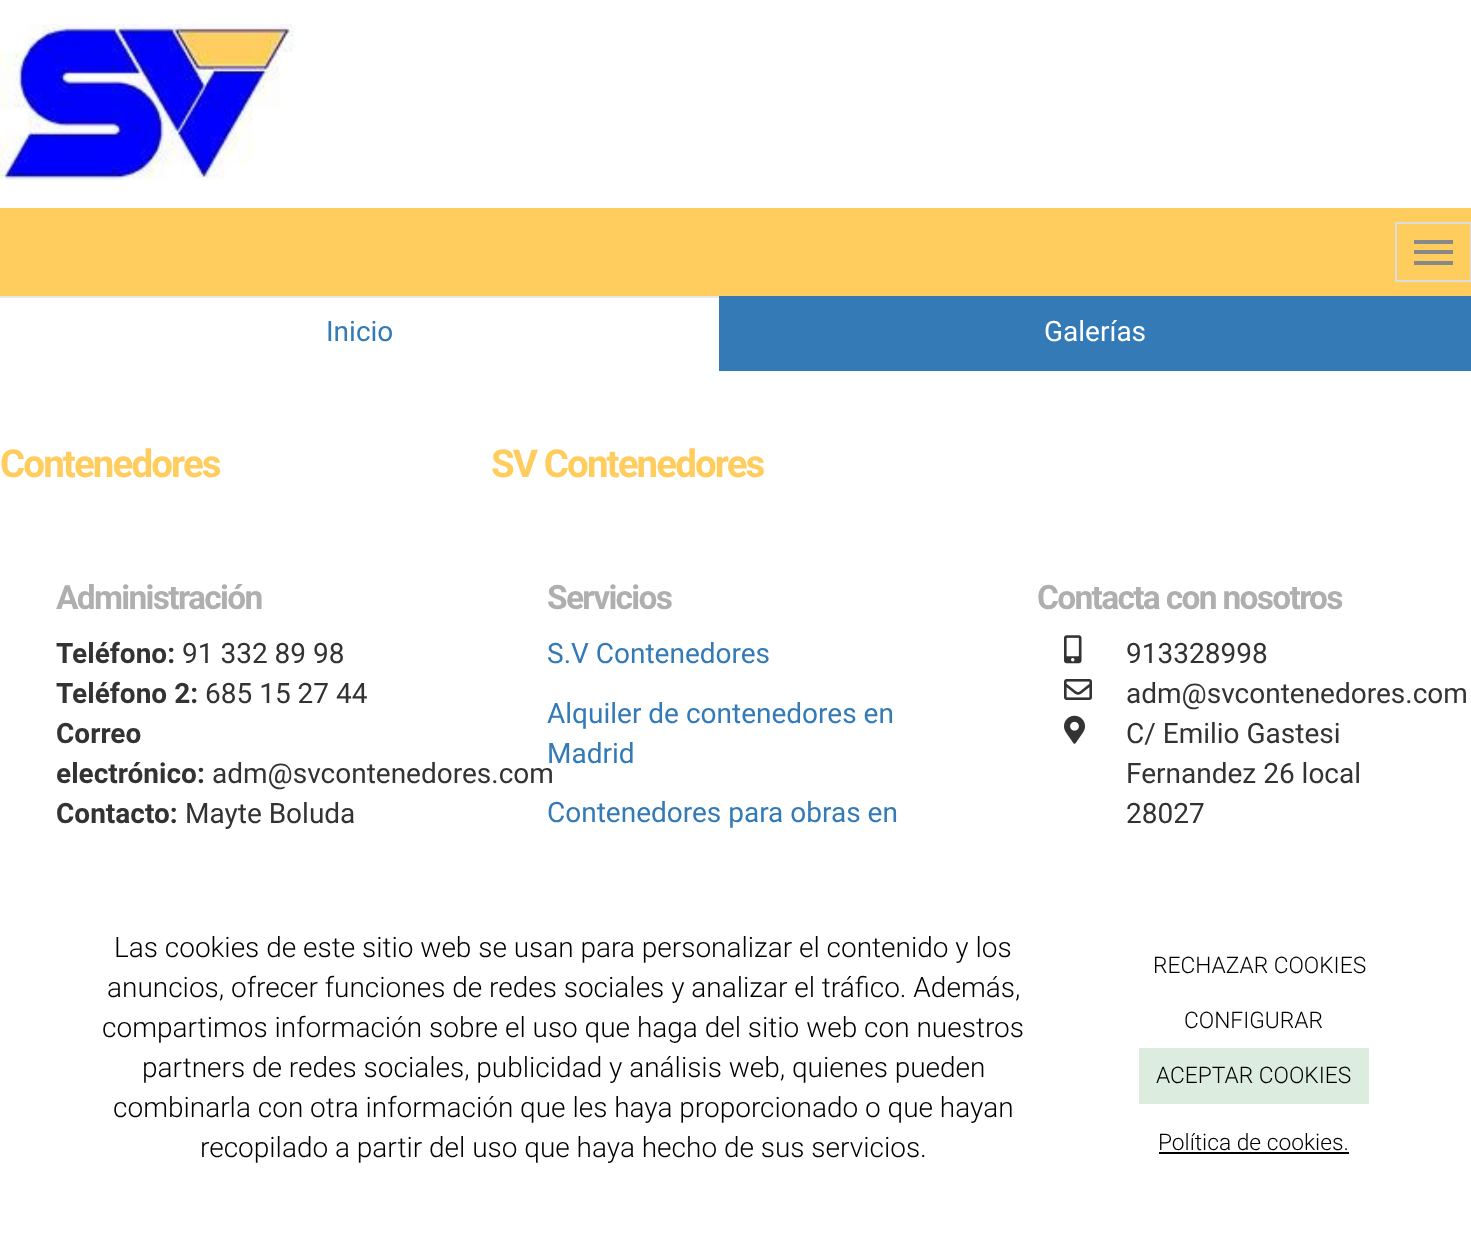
<svg xmlns="http://www.w3.org/2000/svg" width="1471" height="1241">
	<rect width="100%" height="100%" fill="#FFFFFF" />
	<image x="0" y="24" width="295" height="156" href="assets/img1.png" />
	<rect x="0" y="208" width="1471" height="88" fill="#FFCD5E" />
	<rect x="0" y="296" width="719" height="2" fill="#E7E7E7" />
	<rect x="1396" y="223" width="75" height="58" fill="none" stroke="#DDDDDD" stroke-width="2" />
	<rect x="1414" y="240" width="39" height="4" fill="#888888" />
	<rect x="1414" y="250" width="39" height="4" fill="#888888" />
	<rect x="1414" y="261" width="39" height="4" fill="#888888" />
	<text x="326" y="341" font-family="Roboto" font-size="28" fill="#337AB7">Inicio</text>
	<rect x="719" y="296" width="752" height="75" fill="#337AB7" />
	<text x="1044" y="341" font-family="Roboto" font-size="28" fill="#FFFFFF">Galerías</text>
	<g font-family="Roboto" font-size="38.5" font-weight="700" letter-spacing="-1.9" fill="#FFCD5E">
		<text x="0" y="477">Contenedores</text>
		<text x="491" y="477">SV Contenedores</text>
	</g>
	<text x="56" y="609" font-family="Roboto" font-size="33.5" font-weight="700" letter-spacing="-1.7" fill="#AFAFAF">Administración</text>
	<text x="56" y="663" font-family="Roboto" font-size="28" font-weight="700" fill="#333333">Teléfono:</text>
	<text x="182" y="663" font-family="Roboto" font-size="28" fill="#333333">91 332 89 98</text>
	<text x="56" y="703" font-family="Roboto" font-size="28" font-weight="700" fill="#333333">Teléfono 2:</text>
	<text x="205" y="703" font-family="Roboto" font-size="28" fill="#333333">685 15 27 44</text>
	<g font-family="Roboto" font-size="28" font-weight="700" fill="#333333">
		<text x="56" y="743">Correo</text>
		<text x="56" y="783">electrónico:</text>
	</g>
	<text x="212" y="783" font-family="Roboto" font-size="28" fill="#333333">adm@svcontenedores.com</text>
	<text x="56" y="823" font-family="Roboto" font-size="28" font-weight="700" fill="#333333">Contacto:</text>
	<text x="185" y="823" font-family="Roboto" font-size="28" fill="#333333">Mayte Boluda</text>
	<text x="547" y="609" font-family="Roboto" font-size="33.5" font-weight="700" letter-spacing="-1.7" fill="#AFAFAF">Servicios</text>
	<g font-family="Roboto" font-size="28" fill="#337AB7">
		<text x="547" y="663">S.V Contenedores</text>
		<text x="547" y="723">Alquiler de contenedores en</text>
		<text x="547" y="763">Madrid</text>
		<text x="547" y="822">Contenedores para obras en</text>
	</g>
	<text x="1037" y="609" font-family="Roboto" font-size="33.5" font-weight="700" letter-spacing="-1.7" fill="#AFAFAF">Contacta con nosotros</text>
	<image x="1064" y="635" width="18" height="29" href="assets/img2.png" />
	<text x="1126" y="663" font-family="Roboto" font-size="28" fill="#333333">913328998</text>
	<image x="1064" y="679" width="28" height="21" href="assets/img3.png" />
	<text x="1126" y="703" font-family="Roboto" font-size="28" fill="#333333">adm@svcontenedores.com</text>
	<image x="1064" y="715" width="21" height="29" href="assets/img4.png" />
	<g font-family="Roboto" font-size="28" fill="#333333">
		<text x="1126" y="743">C/ Emilio Gastesi</text>
		<text x="1126" y="783">Fernandez 26 local</text>
		<text x="1126" y="823">28027</text>
	</g>
	<g font-family="Roboto" font-size="28" font-weight="300" fill="#000000">
		<text x="114" y="957">Las cookies de este sitio web se usan para personalizar el contenido y los</text>
		<text x="107" y="997">anuncios, ofrecer funciones de redes sociales y analizar el tráfico. Además,</text>
		<text x="102" y="1037">compartimos información sobre el uso que haga del sitio web con nuestros</text>
		<text x="142" y="1077">partners de redes sociales, publicidad y análisis web, quienes pueden</text>
		<text x="113" y="1117">combinarla con otra información que les haya proporcionado o que hayan</text>
		<text x="200" y="1157">recopilado a partir del uso que haya hecho de sus servicios.</text>
	</g>
	<g font-family="Roboto" font-size="22.75" font-weight="300" fill="#000000">
		<text x="1153" y="973">RECHAZAR COOKIES</text>
		<text x="1184" y="1028">CONFIGURAR</text>
	</g>
	<rect x="1139" y="1048" width="230" height="56" fill="#DCECDF" />
	<g font-family="Roboto" font-size="22.75" font-weight="300" fill="#000000">
		<text x="1156" y="1083">ACEPTAR COOKIES</text>
		<text x="1158" y="1150">Política de cookies.</text>
	</g>
	<rect x="1159" y="1152" width="190" height="2" fill="#000000" />
</svg>
